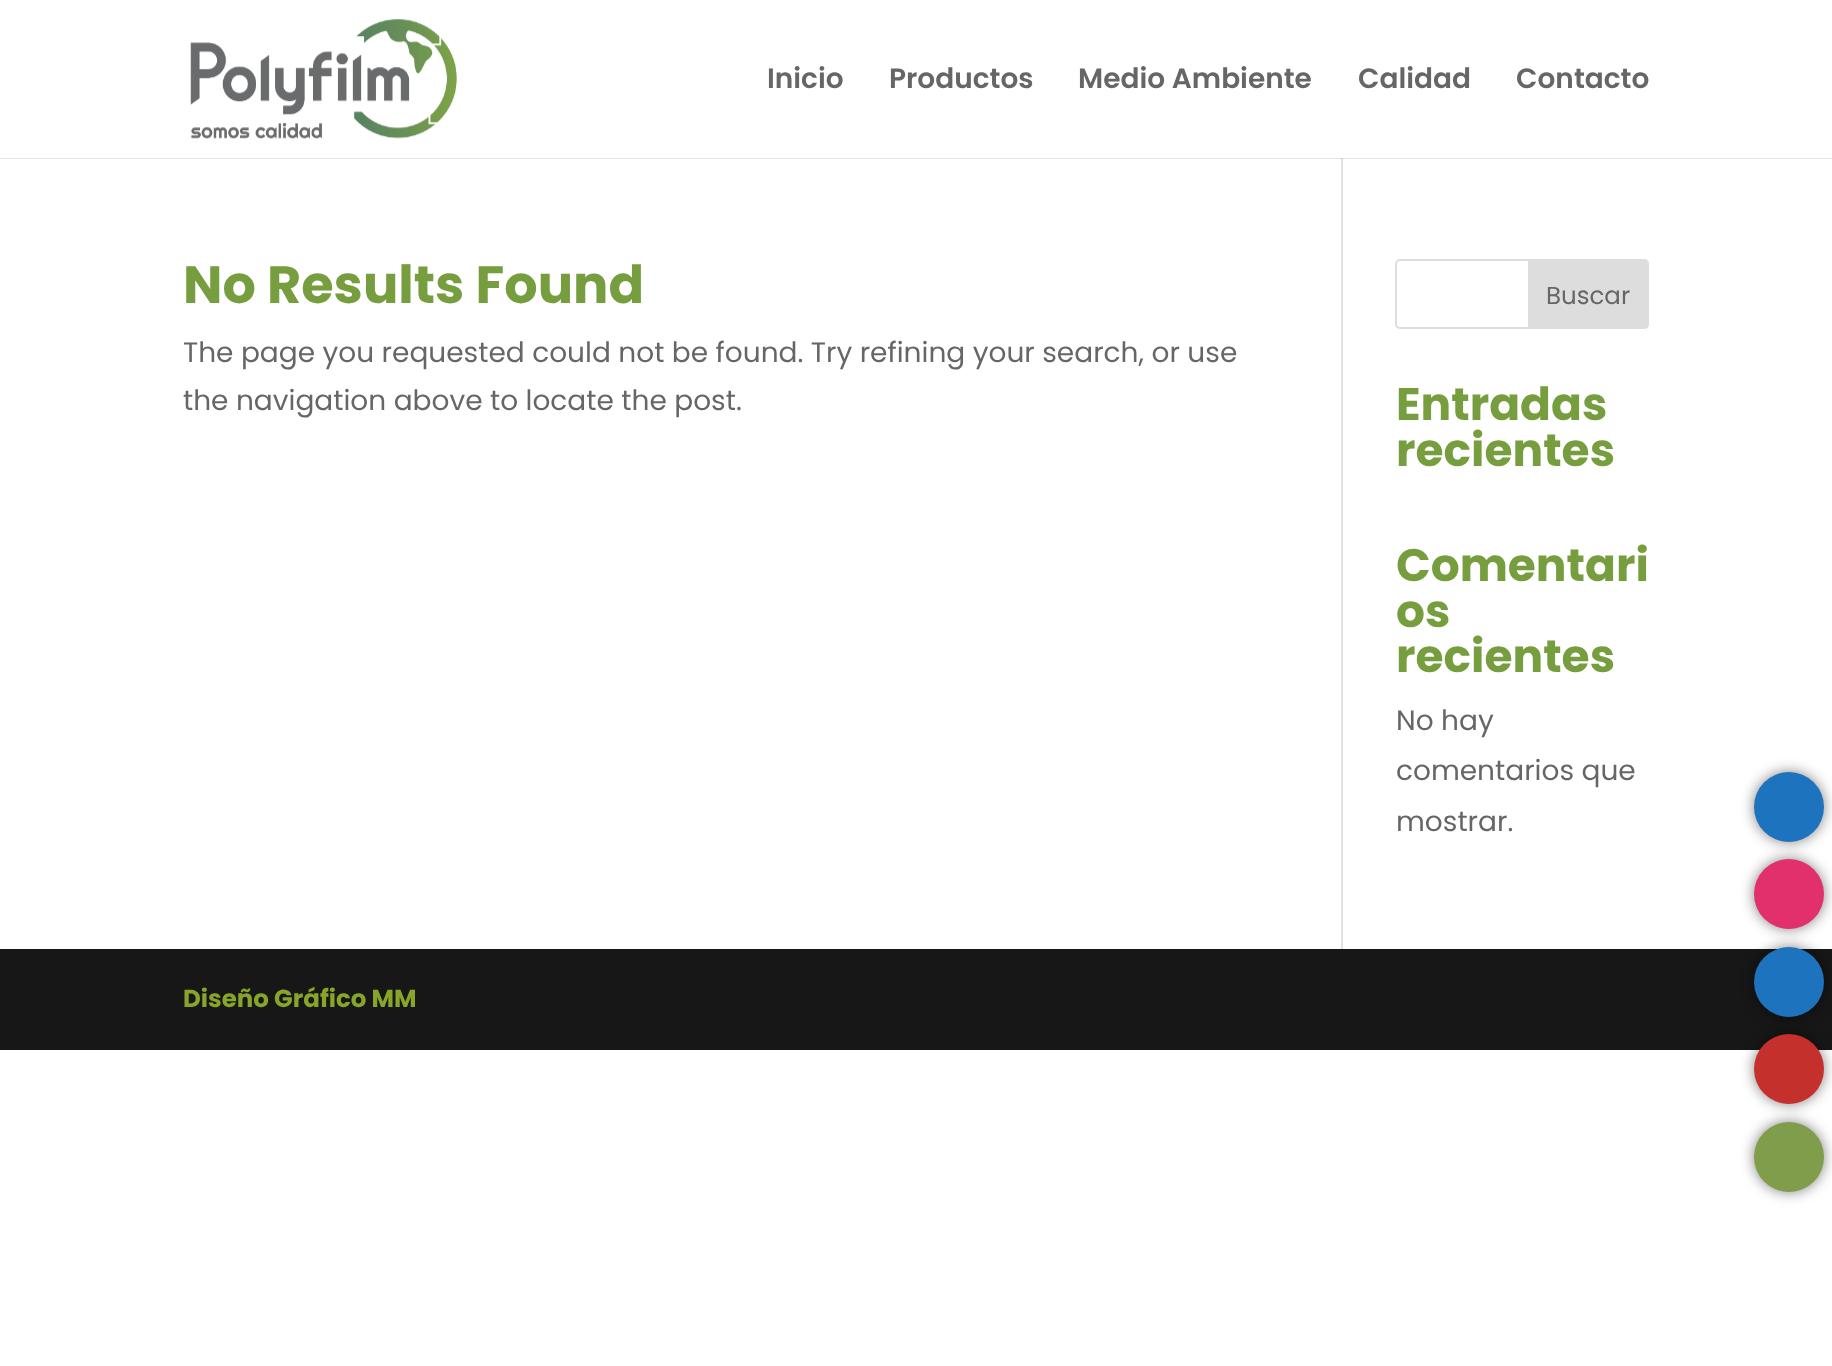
<svg xmlns="http://www.w3.org/2000/svg" width="1832" height="1366">
	<rect width="100%" height="100%" fill="#FFFFFF" />
	<rect x="0" y="158" width="1832" height="1" fill="#E6E6E6" />
	<image x="190" y="19" width="267" height="120" href="assets/img1.png" />
	<g font-family="Poppins" font-size="28" font-weight="600" fill="#666666">
		<text x="767" y="88">Inicio</text>
		<text x="889" y="88">Productos</text>
		<text x="1078" y="88">Medio Ambiente</text>
		<text x="1358" y="88">Calidad</text>
		<text x="1516" y="88">Contacto</text>
	</g>
	<rect x="1341" y="158" width="2" height="791" fill="#E2E2E2" />
	<rect x="1341" y="158" width="2" height="1" fill="#CBCBCB" />
	<text x="183" y="303" font-family="Poppins" font-size="52.5" font-weight="700" fill="#779E3E">No Results Found</text>
	<g font-family="Poppins" font-size="28" fill="#666666">
		<text x="183" y="362">The page you requested could not be found. Try refining your search, or use</text>
		<text x="183" y="410">the navigation above to locate the post.</text>
	</g>
	<rect x="1396" y="260" width="252" height="68" rx="4" fill="none" stroke="#DDDDDD" stroke-width="2" />
	<path d="M1529 260H1644C1646 260 1648 262 1648 264V324C1648 326 1646 328 1644 328H1529Z" fill="#DDDDDD" stroke="#DDDDDD" stroke-width="2" />
	<text x="1546" y="304" font-family="Poppins" font-size="24.5" fill="#666666">Buscar</text>
	<g font-family="Poppins" font-size="45.5" font-weight="700" fill="#779E3E">
		<text x="1396" y="420">Entradas</text>
		<text x="1396" y="466">recientes</text>
		<text x="1396" y="581">Comentari</text>
		<text x="1396" y="627">os</text>
		<text x="1396" y="672">recientes</text>
	</g>
	<g font-family="Poppins" font-size="28" fill="#666666">
		<text x="1396" y="730">No hay</text>
		<text x="1396" y="780">comentarios que</text>
		<text x="1396" y="831">mostrar.</text>
	</g>
	<rect x="0" y="949" width="1832" height="101" fill="#171717" />
	<text x="183" y="1007" font-family="Poppins" font-size="24.5" font-weight="700" fill="#87A529">Diseño Gráfico MM</text>
	<rect x="1754" y="772" width="70" height="70" rx="35" fill="#000000" fill-opacity="0.5" filter="blur(7px)" />
	<circle cx="1789" cy="807" r="35" fill="#1E73BE" />
	<rect x="1754" y="859" width="70" height="70" rx="35" fill="#000000" fill-opacity="0.5" filter="blur(7px)" />
	<circle cx="1789" cy="894" r="35" fill="#E1306C" />
	<rect x="1754" y="947" width="70" height="70" rx="35" fill="#000000" fill-opacity="0.5" filter="blur(7px)" />
	<circle cx="1789" cy="982" r="35" fill="#1E73BE" />
	<rect x="1754" y="1034" width="70" height="70" rx="35" fill="#000000" fill-opacity="0.5" filter="blur(7px)" />
	<circle cx="1789" cy="1069" r="35" fill="#C4302B" />
	<rect x="1754" y="1122" width="70" height="70" rx="35" fill="#000000" fill-opacity="0.5" filter="blur(7px)" />
	<circle cx="1789" cy="1157" r="35" fill="#809D4C" />
</svg>
